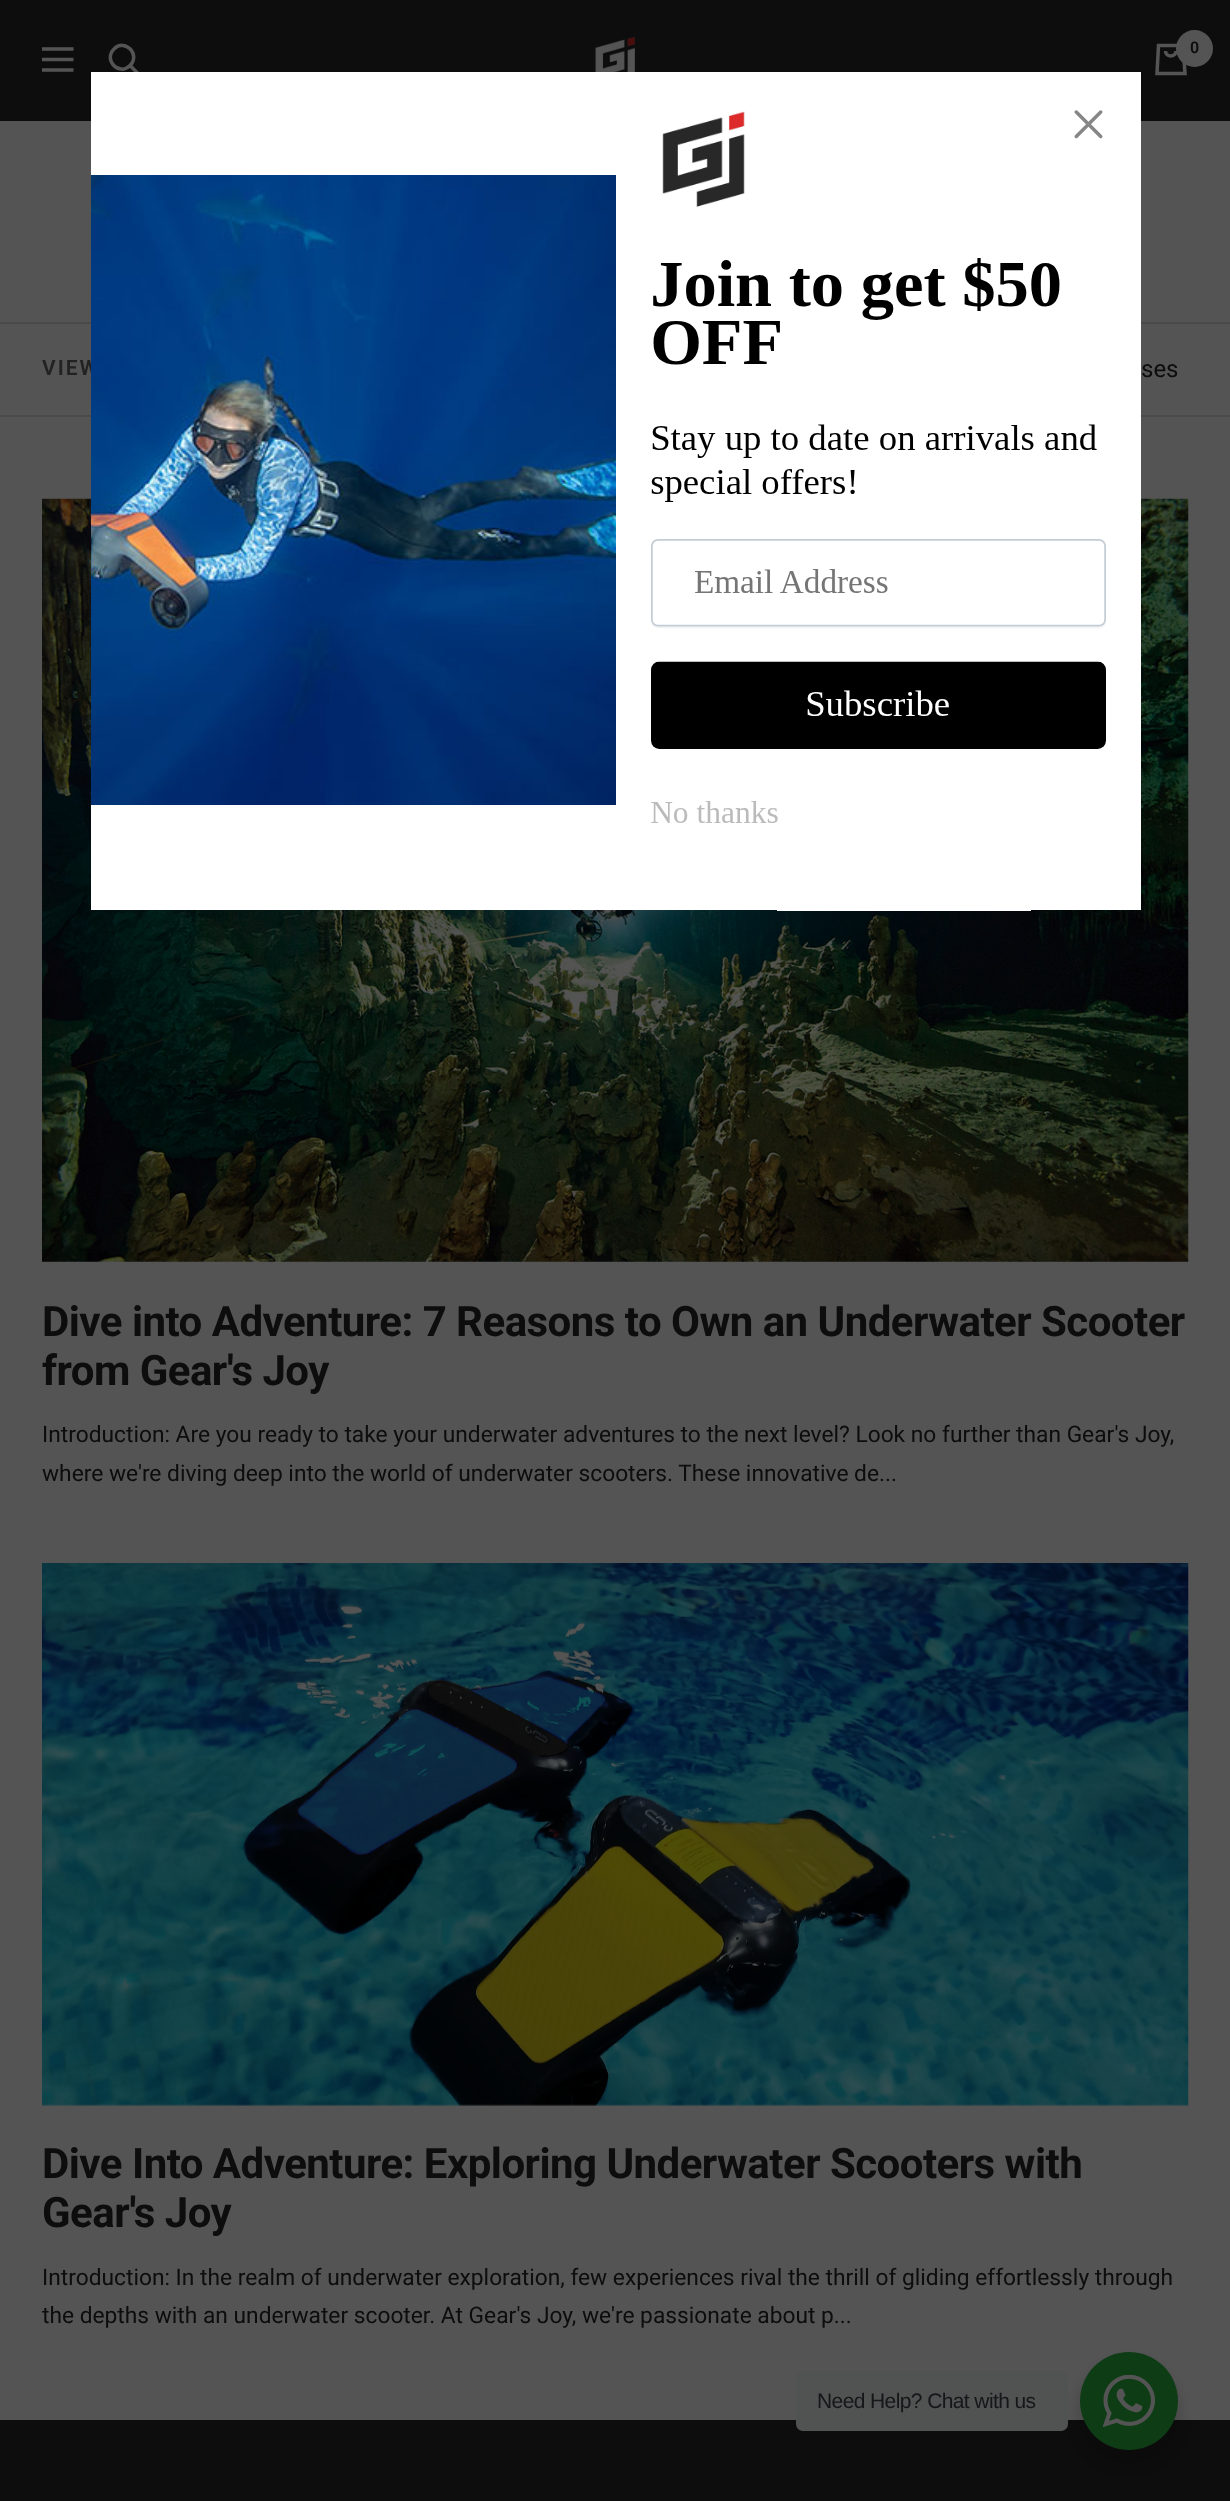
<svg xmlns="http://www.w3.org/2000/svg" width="1230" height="2501">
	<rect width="100%" height="100%" fill="#FFFFFF" />
	<rect x="0" y="0" width="1230" height="121" fill="#282828" />
	<path d="M42 49H73.5M42 70H73.5ZM42 59.5H73.5Z" fill="none" stroke="#FFFFFF" stroke-width="3.5" />
	<path d="M130 65.5C141 54.5 125 38 114 49C103 60 119 76.5 130 65.5ZM130 65.5L138 73.5" fill="none" stroke="#FFFFFF" stroke-width="3.5" />
	<image x="595" y="37" width="40" height="35" href="assets/img2.png" />
	<path d="M1158.5 45.5H1183L1185 73.5H1157ZM1165.5 51C1165.5 57.5 1176 57.5 1176 51" fill="none" stroke="#FFFFFF" stroke-width="3.5" />
	<circle cx="1194.5" cy="48.5" r="18.5" fill="#FFFFFF" />
	<text x="1190" y="53" font-family="Roboto" font-size="16" font-weight="600" fill="#282828">0</text>
	<rect x="0" y="322" width="1230" height="2" fill="#DFDFDF" />
	<rect x="0" y="415" width="1230" height="2" fill="#DFDFDF" />
	<text x="42" y="375" font-family="Roboto" font-size="21" font-weight="600" letter-spacing="2" fill="#696969">VIEW</text>
	<text x="1141" y="377" font-family="Roboto" font-size="24" fill="#282828">ses</text>
	<image x="42" y="498" width="1147" height="764" href="assets/img3.png" />
	<g font-family="Roboto" font-size="42" font-weight="700" letter-spacing="-0.53" fill="#282828">
		<text x="42" y="1336">Dive into Adventure: 7 Reasons to Own an Underwater Scooter</text>
		<text x="42" y="1385">from Gear's Joy</text>
	</g>
	<g font-family="Roboto" font-size="22.75" fill="#282828">
		<text x="42" y="1442">Introduction: Are you ready to take your underwater adventures to the next level? Look no further than Gear's Joy,</text>
		<text x="42" y="1481">where we're diving deep into the world of underwater scooters. These innovative de...</text>
	</g>
	<image x="42" y="1563" width="1147" height="543" href="assets/img4.png" />
	<g font-family="Roboto" font-size="42" font-weight="700" letter-spacing="-0.53" fill="#282828">
		<text x="42" y="2178">Dive Into Adventure: Exploring Underwater Scooters with</text>
		<text x="42" y="2227">Gear's Joy</text>
	</g>
	<g font-family="Roboto" font-size="22.75" fill="#282828">
		<text x="42" y="2285">Introduction: In the realm of underwater exploration, few experiences rival the thrill of gliding effortlessly through</text>
		<text x="42" y="2323">the depths with an underwater scooter. At Gear's Joy, we're passionate about p...</text>
	</g>
	<rect x="0" y="2420" width="1230" height="81" fill="#282828" />
	<rect x="1076" y="2359" width="105" height="105" rx="52.5" fill="#000000" fill-opacity="0.14" filter="blur(7px)" />
	<rect x="796" y="2371" width="272" height="60" rx="7" fill="#F5F7F9" />
	<text x="817" y="2408" font-family="Liberation Sans" font-size="21" letter-spacing="-0.6" fill="#43474E">Need Help? Chat with us</text>
	<circle cx="1129" cy="2401" r="49" fill="#2DB742" />
	<image x="1103" y="2375" width="52" height="52" href="assets/img5.png" />
	<image x="0" y="0" width="1230" height="2501" href="assets/img1.png" />
</svg>
